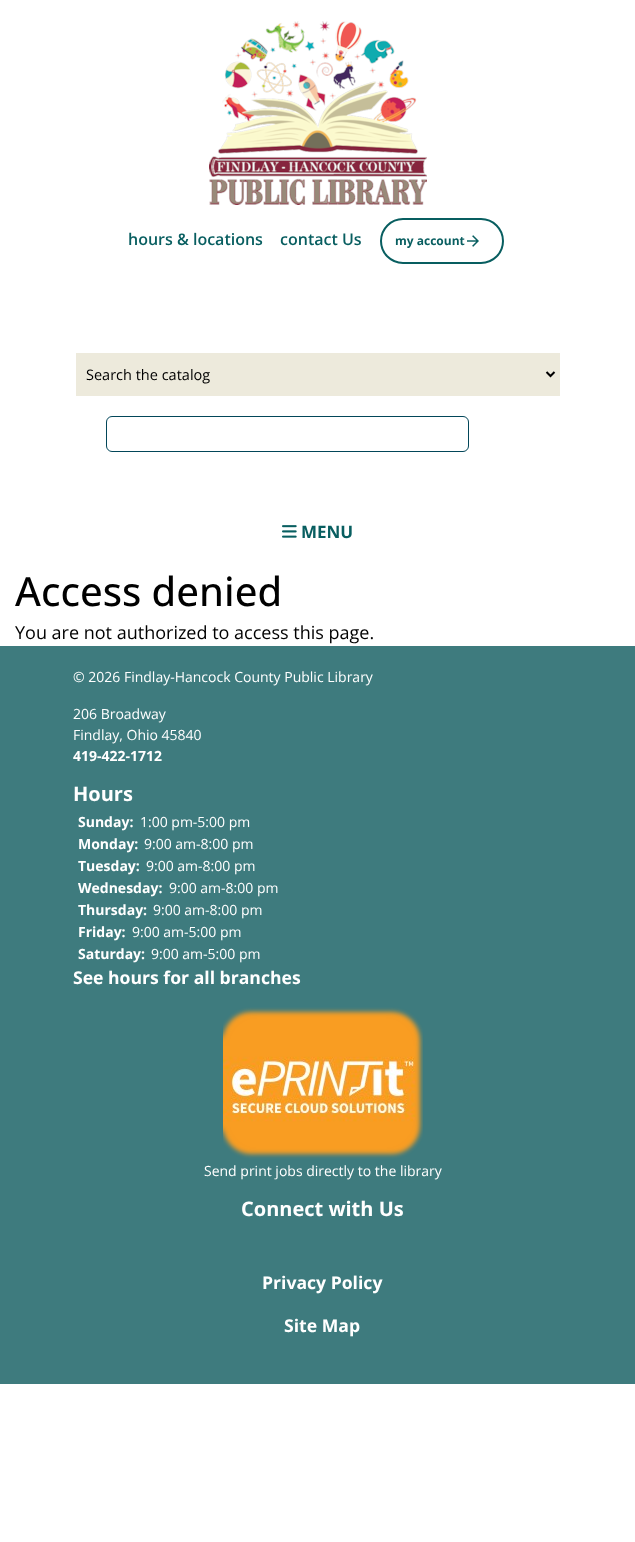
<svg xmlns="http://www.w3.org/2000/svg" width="635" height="1542">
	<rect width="100%" height="100%" fill="#FFFFFF" />
	<image x="209" y="21" width="218" height="184" href="assets/img1.png" />
	<g font-family="Open Sans" font-size="16" font-weight="600" fill="#085E60">
		<text x="128" y="245">hours &amp; locations</text>
		<text x="280" y="245">contact Us</text>
	</g>
	<rect x="381" y="219" width="122" height="44" rx="22" fill="none" stroke="#085E60" stroke-width="2" />
	<text x="395" y="245" font-family="Open Sans" font-size="12" font-weight="700" fill="#085E60">my account</text>
	<image x="467" y="235" width="12" height="12" href="assets/img2.png" />
	<rect x="76" y="353" width="484" height="43" fill="#EDEADC" />
	<path d="M546.5 372L550.5 376L554.5 372" fill="none" stroke="#000000" stroke-width="2" />
	<text x="86" y="380" font-family="Open Sans" font-size="14.5" fill="#000000">Search the catalog</text>
	<rect x="106.5" y="416.5" width="362" height="35" rx="5.5" fill="none" stroke="#024659" />
	<image x="282" y="525" width="15" height="13" href="assets/img3.png" />
	<text x="301" y="538" font-family="Open Sans" font-size="17" font-weight="700" fill="#085E60">MENU</text>
	<text x="15" y="606" font-family="Open Sans" font-size="40" font-weight="500" fill="#000000">Access denied</text>
	<text x="15" y="639" font-family="Open Sans" font-size="18" fill="#000000">You are not authorized to access this page.</text>
	<rect x="0" y="646" width="635" height="738" fill="#3E7B7E" />
	<g font-family="Open Sans" font-size="14" fill="#FFFFFF">
		<text x="73" y="682">© 2026 Findlay-Hancock County Public Library</text>
		<text x="73" y="719">206 Broadway</text>
		<text x="73" y="740">Findlay, Ohio 45840</text>
	</g>
	<text x="73" y="761" font-family="Open Sans" font-size="14" font-weight="700" fill="#FFFFFF">419-422-1712</text>
	<text x="73" y="801" font-family="Open Sans" font-size="20" font-weight="700" fill="#FFFFFF">Hours</text>
	<text x="78" y="827" font-family="Open Sans" font-size="14" font-weight="700" fill="#FFFFFF">Sunday:</text>
	<text x="140" y="827" font-family="Open Sans" font-size="14" fill="#FFFFFF">1:00 pm-5:00 pm</text>
	<text x="78" y="849" font-family="Open Sans" font-size="14" font-weight="700" fill="#FFFFFF">Monday:</text>
	<text x="144" y="849" font-family="Open Sans" font-size="14" fill="#FFFFFF">9:00 am-8:00 pm</text>
	<text x="78" y="871" font-family="Open Sans" font-size="14" font-weight="700" fill="#FFFFFF">Tuesday:</text>
	<text x="146" y="871" font-family="Open Sans" font-size="14" fill="#FFFFFF">9:00 am-8:00 pm</text>
	<text x="78" y="893" font-family="Open Sans" font-size="14" font-weight="700" fill="#FFFFFF">Wednesday:</text>
	<text x="169" y="893" font-family="Open Sans" font-size="14" fill="#FFFFFF">9:00 am-8:00 pm</text>
	<text x="78" y="915" font-family="Open Sans" font-size="14" font-weight="700" fill="#FFFFFF">Thursday:</text>
	<text x="153" y="915" font-family="Open Sans" font-size="14" fill="#FFFFFF">9:00 am-8:00 pm</text>
	<text x="78" y="937" font-family="Open Sans" font-size="14" font-weight="700" fill="#FFFFFF">Friday:</text>
	<text x="132" y="937" font-family="Open Sans" font-size="14" fill="#FFFFFF">9:00 am-5:00 pm</text>
	<text x="78" y="959" font-family="Open Sans" font-size="14" font-weight="700" fill="#FFFFFF">Saturday:</text>
	<text x="151" y="959" font-family="Open Sans" font-size="14" fill="#FFFFFF">9:00 am-5:00 pm</text>
	<text x="73" y="984" font-family="Open Sans" font-size="17.6" font-weight="700" fill="#FFFFFF">See hours for all branches</text>
	<image x="223" y="1007" width="200" height="152" href="assets/img4.png" />
	<text x="204" y="1176" font-family="Open Sans" font-size="14" fill="#FFFFFF">Send print jobs directly to the library</text>
	<text x="241" y="1216" font-family="Open Sans" font-size="20" font-weight="700" fill="#FFFFFF">Connect with Us</text>
	<g font-family="Open Sans" font-size="17.6" font-weight="700" fill="#FFFFFF">
		<text x="262" y="1289">Privacy Policy</text>
		<text x="284" y="1332">Site Map</text>
	</g>
</svg>
